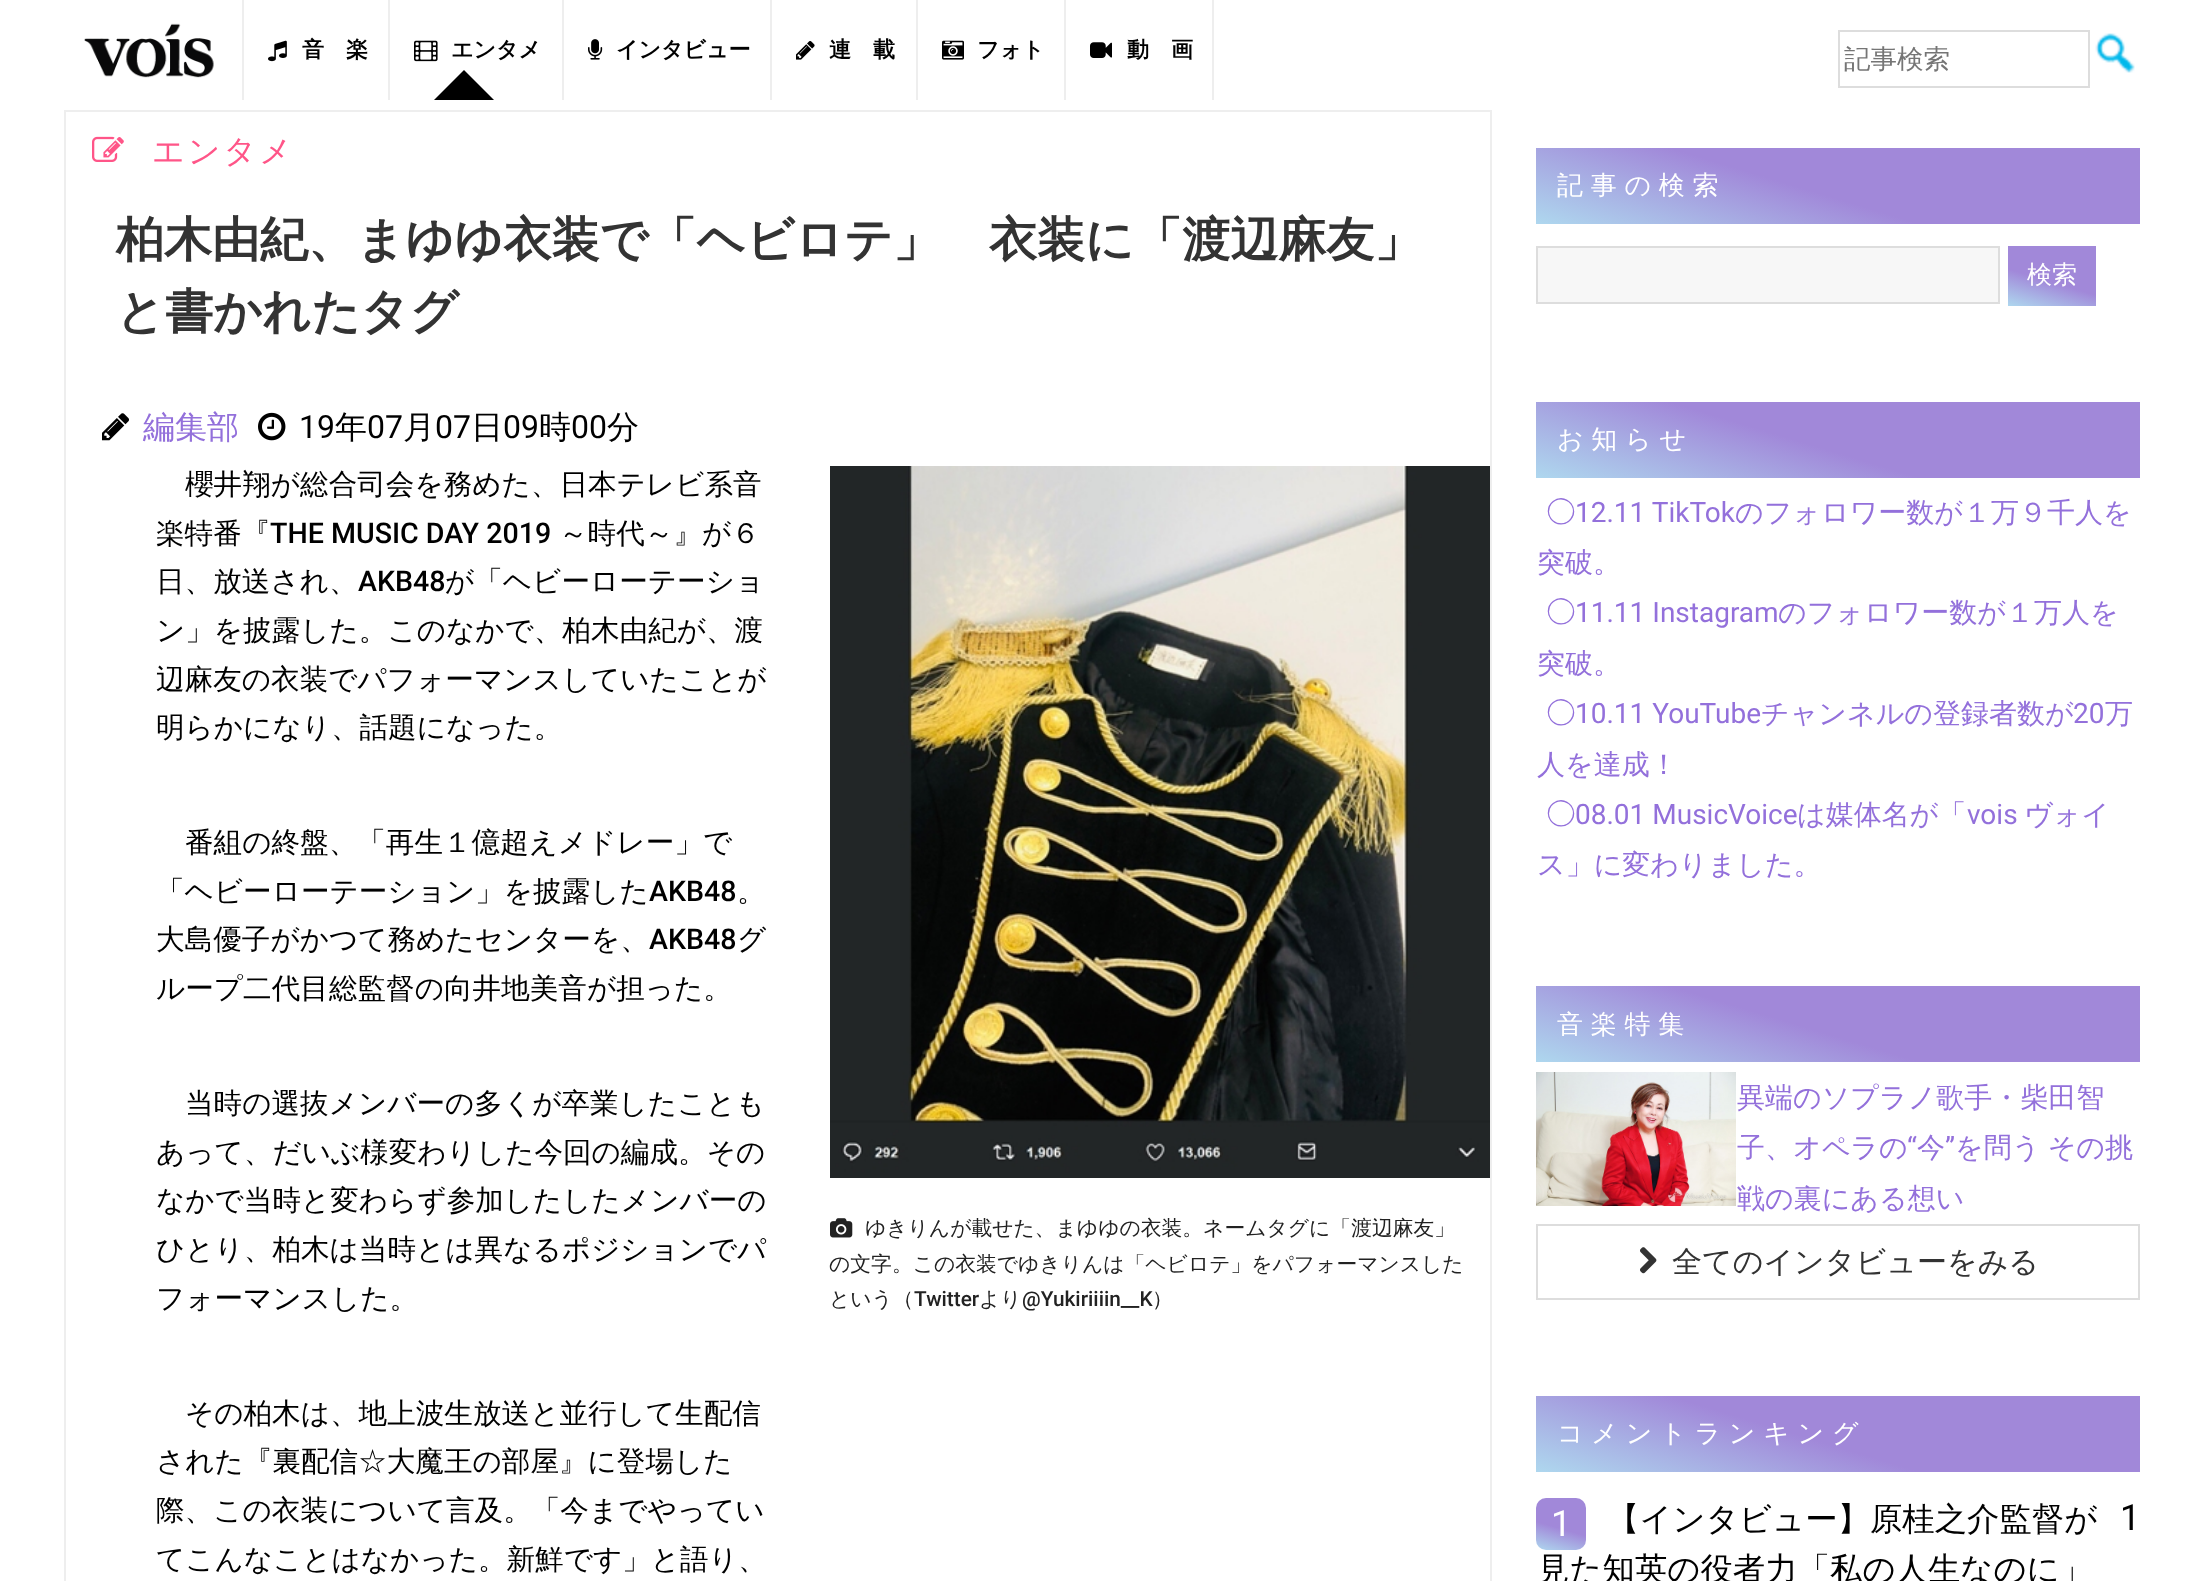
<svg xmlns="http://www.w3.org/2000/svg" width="2200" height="1581">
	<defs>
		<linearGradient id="g1" gradientUnits="userSpaceOnUse" x1="1820" y1="311" x2="1896" y2="61"><stop offset="0.01" stop-color="#AED6EE" /><stop offset="0.43" stop-color="#A188D9" /></linearGradient>
		<linearGradient id="g2" gradientUnits="userSpaceOnUse" x1="2040" y1="316" x2="2064" y2="236"><stop offset="0.01" stop-color="#AED6EE" /><stop offset="0.43" stop-color="#A188D9" /></linearGradient>
		<linearGradient id="g3" gradientUnits="userSpaceOnUse" x1="1820" y1="565" x2="1896" y2="315"><stop offset="0.01" stop-color="#AED6EE" /><stop offset="0.43" stop-color="#A188D9" /></linearGradient>
		<linearGradient id="g4" gradientUnits="userSpaceOnUse" x1="1820" y1="1149" x2="1896" y2="899"><stop offset="0.01" stop-color="#AED6EE" /><stop offset="0.43" stop-color="#A188D9" /></linearGradient>
		<linearGradient id="g5" gradientUnits="userSpaceOnUse" x1="1820" y1="1559" x2="1896" y2="1309"><stop offset="0.01" stop-color="#AED6EE" /><stop offset="0.43" stop-color="#A188D9" /></linearGradient>
		<linearGradient id="g6" gradientUnits="userSpaceOnUse" x1="1552" y1="1555" x2="1570" y2="1493"><stop offset="0.01" stop-color="#AED6EE" /><stop offset="0.43" stop-color="#A188D9" /></linearGradient>
	</defs>
	<rect width="100%" height="100%" fill="#FFFFFF" />
	<rect x="242" y="0" width="2" height="100" fill="#EEEEEE" />
	<image x="84" y="23" width="130" height="55" href="assets/img1.png" />
	<rect x="388" y="0" width="2" height="100" fill="#EEEEEE" />
	<image x="268" y="40" width="19" height="22" href="assets/img2.png" />
	<text x="302" y="57" font-family="WenQuanYi Zen Hei" font-size="22" font-weight="700" fill="#000000">音　楽</text>
	<rect x="562" y="0" width="2" height="100" fill="#EEEEEE" />
	<image x="414" y="40" width="24" height="22" href="assets/img3.png" />
	<text x="451" y="57" font-family="WenQuanYi Zen Hei" font-size="22" font-weight="700" fill="#000000">エンタメ</text>
	<path d="M494 100H434L464 70Z" fill="#000000" />
	<rect x="770" y="0" width="2" height="100" fill="#EEEEEE" />
	<image x="588" y="39" width="15" height="21" href="assets/img4.png" />
	<text x="616" y="57" font-family="WenQuanYi Zen Hei" font-size="22" font-weight="700" fill="#000000">インタビュー</text>
	<rect x="916" y="0" width="2" height="100" fill="#EEEEEE" />
	<image x="796" y="41" width="19" height="19" href="assets/img5.png" />
	<text x="829" y="57" font-family="WenQuanYi Zen Hei" font-size="22" font-weight="700" fill="#000000">連　載</text>
	<rect x="1064" y="0" width="2" height="100" fill="#EEEEEE" />
	<image x="942" y="40" width="22" height="20" href="assets/img6.png" />
	<text x="977" y="57" font-family="WenQuanYi Zen Hei" font-size="22" font-weight="700" fill="#000000">フォト</text>
	<rect x="1212" y="0" width="2" height="100" fill="#EEEEEE" />
	<image x="1090" y="42" width="22" height="16" href="assets/img7.png" />
	<text x="1127" y="57" font-family="WenQuanYi Zen Hei" font-size="22" font-weight="700" fill="#000000">動　画</text>
	<rect x="1839" y="31" width="250" height="56" fill="none" stroke="#DDDDDD" stroke-width="2" />
	<text x="1844" y="68" font-family="WenQuanYi Zen Hei" font-size="26.5" font-weight="500" fill="#757575">記事検索</text>
	<image x="2095" y="33" width="40" height="40" href="assets/img8.png" />
	<rect x="65" y="111" width="1426" height="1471" fill="none" stroke="#EEEEEE" stroke-width="2" />
	<image x="92" y="136" width="32" height="26" href="assets/img9.png" />
	<text x="152" y="162" font-family="WenQuanYi Zen Hei" font-size="32" font-weight="500" letter-spacing="3" fill="#FF5588">エンタメ</text>
	<g font-family="WenQuanYi Zen Hei" font-size="48" font-weight="700" fill="#333333">
		<text x="116" y="256">柏木由紀、まゆゆ衣装で「ヘビロテ」　衣装に「渡辺麻友」</text>
		<text x="116" y="328">と書かれたタグ</text>
	</g>
	<image x="102" y="413" width="27" height="28" href="assets/img10.png" />
	<text x="143" y="438" font-family="WenQuanYi Zen Hei" font-size="32" font-weight="500" fill="#9370DB">編集部</text>
	<image x="258" y="412" width="28" height="29" href="assets/img11.png" />
	<text x="299" y="438" font-family="Roboto" font-size="32" fill="#000000">19</text>
	<text x="335" y="438" font-family="WenQuanYi Zen Hei" font-size="32" font-weight="500" fill="#000000">年</text>
	<text x="367" y="438" font-family="Roboto" font-size="32" fill="#000000">07</text>
	<text x="403" y="438" font-family="WenQuanYi Zen Hei" font-size="32" font-weight="500" fill="#000000">月</text>
	<text x="435" y="438" font-family="Roboto" font-size="32" fill="#000000">07</text>
	<text x="471" y="438" font-family="WenQuanYi Zen Hei" font-size="32" font-weight="500" fill="#000000">日</text>
	<text x="503" y="438" font-family="Roboto" font-size="32" fill="#000000">09</text>
	<text x="539" y="438" font-family="WenQuanYi Zen Hei" font-size="32" font-weight="500" fill="#000000">時</text>
	<text x="571" y="438" font-family="Roboto" font-size="32" fill="#000000">00</text>
	<text x="607" y="438" font-family="WenQuanYi Zen Hei" font-size="32" font-weight="500" fill="#000000">分</text>
	<g font-family="WenQuanYi Zen Hei" font-size="28.6" font-weight="500" fill="#000000">
		<text x="185" y="494">櫻井翔が総合司会を務めた、日本テレビ系音</text>
		<text x="156" y="543">楽特番『</text>
	</g>
	<text x="270" y="543" font-family="Roboto" font-size="28.6" font-weight="500" fill="#000000">THE MUSIC DAY 2019</text>
	<g font-family="WenQuanYi Zen Hei" font-size="28.6" font-weight="500" fill="#000000">
		<text x="559" y="543">～時代～』が６</text>
		<text x="156" y="591">日、放送され、</text>
	</g>
	<text x="358" y="591" font-family="Roboto" font-size="28.6" font-weight="500" fill="#000000">AKB48</text>
	<g font-family="WenQuanYi Zen Hei" font-size="28.6" font-weight="500" fill="#000000">
		<text x="445" y="591">が「ヘビーローテーショ</text>
		<text x="156" y="640">ン」を披露した。このなかで、柏木由紀が、渡</text>
		<text x="156" y="689">辺麻友の衣装でパフォーマンスしていたことが</text>
		<text x="156" y="737">明らかになり、話題になった。</text>
		<text x="185" y="852">番組の終盤、「再生１億超えメドレー」で</text>
		<text x="156" y="901">「ヘビーローテーション」を披露した</text>
	</g>
	<text x="649" y="901" font-family="Roboto" font-size="28.6" font-weight="500" fill="#000000">AKB48</text>
	<g font-family="WenQuanYi Zen Hei" font-size="28.6" font-weight="500" fill="#000000">
		<text x="737" y="901">。</text>
		<text x="156" y="949">大島優子がかつて務めたセンターを、</text>
	</g>
	<text x="649" y="949" font-family="Roboto" font-size="28.6" font-weight="500" fill="#000000">AKB48</text>
	<g font-family="WenQuanYi Zen Hei" font-size="28.6" font-weight="500" fill="#000000">
		<text x="737" y="949">グ</text>
		<text x="156" y="998">ループ二代目総監督の向井地美音が担った。</text>
		<text x="185" y="1113">当時の選抜メンバーの多くが卒業したことも</text>
		<text x="156" y="1162">あって、だいぶ様変わりした今回の編成。その</text>
		<text x="156" y="1210">なかで当時と変わらず参加したしたメンバーの</text>
		<text x="156" y="1259">ひとり、柏木は当時とは異なるポジションでパ</text>
		<text x="156" y="1308">フォーマンスした。</text>
	</g>
	<image x="830" y="466" width="660" height="712" href="assets/img12.png" />
	<image x="830" y="1218" width="23" height="20" href="assets/img13.png" />
	<g font-family="WenQuanYi Zen Hei" font-size="20.8" font-weight="500" fill="#222222">
		<text x="865" y="1235">ゆきりんが載せた、まゆゆの衣装。ネームタグに「渡辺麻友」</text>
		<text x="829" y="1271">の文字。この衣装でゆきりんは「ヘビロテ」をパフォーマンスした</text>
		<text x="829" y="1306">という（</text>
	</g>
	<text x="914" y="1306" font-family="Roboto" font-size="20.8" font-weight="500" fill="#222222">Twitter</text>
	<text x="979" y="1306" font-family="WenQuanYi Zen Hei" font-size="20.8" font-weight="500" fill="#222222">より</text>
	<text x="1022" y="1306" font-family="Roboto" font-size="20.8" font-weight="500" fill="#222222">@Yukiriiiin__K</text>
	<text x="1152" y="1306" font-family="WenQuanYi Zen Hei" font-size="20.8" font-weight="500" fill="#222222">）</text>
	<g font-family="WenQuanYi Zen Hei" font-size="28.6" font-weight="500" fill="#000000">
		<text x="185" y="1423">その柏木は、地上波生放送と並行して生配信</text>
		<text x="156" y="1471">された『裏配信☆大魔王の部屋』に登場した</text>
		<text x="156" y="1520">際、この衣装について言及。「今までやってい</text>
		<text x="156" y="1569">てこんなことはなかった。新鮮です」と語り、</text>
	</g>
	<rect x="1536" y="148" width="604" height="76" fill="url(#g1)" />
	<text x="1557" y="194" font-family="WenQuanYi Zen Hei" font-size="26" font-weight="500" letter-spacing="7.75" fill="#FFFFFF">記事の検索</text>
	<rect x="1537" y="247" width="462" height="56" fill="#F7F7F7" stroke="#DDDDDD" stroke-width="2" />
	<rect x="2008" y="246" width="88" height="60" fill="url(#g2)" />
	<text x="2027" y="283" font-family="WenQuanYi Zen Hei" font-size="25" font-weight="500" fill="#FFFFFF">検索</text>
	<rect x="1536" y="402" width="604" height="76" fill="url(#g3)" />
	<text x="1557" y="448" font-family="WenQuanYi Zen Hei" font-size="26" font-weight="500" letter-spacing="7.75" fill="#FFFFFF">お知らせ</text>
	<text x="1547" y="522" font-family="IPAPGothic" font-size="28" fill="#9370DB">◯</text>
	<text x="1575" y="522" font-family="Roboto" font-size="28" fill="#9370DB">12.11 TikTok</text>
	<g font-family="WenQuanYi Zen Hei" font-size="28" font-weight="500" fill="#9370DB">
		<text x="1735" y="522">のフォロワー数が１万９千人を</text>
		<text x="1537" y="572">突破。</text>
	</g>
	<text x="1547" y="622" font-family="IPAPGothic" font-size="28" fill="#9370DB">◯</text>
	<text x="1575" y="622" font-family="Roboto" font-size="28" fill="#9370DB">11.11 Instagram</text>
	<g font-family="WenQuanYi Zen Hei" font-size="28" font-weight="500" fill="#9370DB">
		<text x="1778" y="622">のフォロワー数が１万人を</text>
		<text x="1537" y="673">突破。</text>
	</g>
	<text x="1547" y="723" font-family="IPAPGothic" font-size="28" fill="#9370DB">◯</text>
	<text x="1575" y="723" font-family="Roboto" font-size="28" fill="#9370DB">10.11 YouTube</text>
	<text x="1761" y="723" font-family="WenQuanYi Zen Hei" font-size="28" font-weight="500" fill="#9370DB">チャンネルの登録者数が</text>
	<text x="2073" y="723" font-family="Roboto" font-size="28" fill="#9370DB">20</text>
	<g font-family="WenQuanYi Zen Hei" font-size="28" font-weight="500" fill="#9370DB">
		<text x="2105" y="723">万</text>
		<text x="1537" y="774">人を達成！</text>
	</g>
	<text x="1547" y="824" font-family="IPAPGothic" font-size="28" fill="#9370DB">◯</text>
	<text x="1575" y="824" font-family="Roboto" font-size="28" fill="#9370DB">08.01 MusicVoice</text>
	<text x="1797" y="824" font-family="WenQuanYi Zen Hei" font-size="28" font-weight="500" fill="#9370DB">は媒体名が「</text>
	<text x="1967" y="824" font-family="Roboto" font-size="28" fill="#9370DB">vois</text>
	<g font-family="WenQuanYi Zen Hei" font-size="28" font-weight="500" fill="#9370DB">
		<text x="2024" y="824">ヴォイ</text>
		<text x="1537" y="874">ス」に変わりました。</text>
	</g>
	<rect x="1536" y="986" width="604" height="76" fill="url(#g4)" />
	<text x="1557" y="1033" font-family="WenQuanYi Zen Hei" font-size="26" font-weight="500" letter-spacing="7.75" fill="#FFFFFF">音楽特集</text>
	<image x="1536" y="1072" width="200" height="134" href="assets/img14.png" />
	<g font-family="WenQuanYi Zen Hei" font-size="28" font-weight="500" fill="#9370DB">
		<text x="1737" y="1107">異端のソプラノ歌手・柴田智</text>
		<text x="1737" y="1157">子、オペラの</text>
	</g>
	<text x="1907" y="1157" font-family="Roboto" font-size="28" fill="#9370DB">“</text>
	<text x="1917" y="1157" font-family="WenQuanYi Zen Hei" font-size="28" font-weight="500" fill="#9370DB">今</text>
	<text x="1945" y="1157" font-family="Roboto" font-size="28" fill="#9370DB">”</text>
	<g font-family="WenQuanYi Zen Hei" font-size="28" font-weight="500" fill="#9370DB">
		<text x="1955" y="1157" word-spacing="-1">を問う その挑</text>
		<text x="1737" y="1208">戦の裏にある想い</text>
	</g>
	<rect x="1537" y="1225" width="602" height="74" fill="none" stroke="#DDDDDD" stroke-width="2" />
	<image x="1640" y="1247" width="17" height="27" href="assets/img15.png" />
	<text x="1672" y="1272" font-family="WenQuanYi Zen Hei" font-size="30" font-weight="500" fill="#333333">全てのインタビューをみる</text>
	<rect x="1536" y="1396" width="604" height="76" fill="url(#g5)" />
	<text x="1557" y="1442" font-family="WenQuanYi Zen Hei" font-size="26" font-weight="500" letter-spacing="7.75" fill="#FFFFFF">コメントランキング</text>
	<g font-family="WenQuanYi Zen Hei" font-size="32.4" font-weight="500" fill="#000000">
		<text x="1607" y="1530">【インタビュー】原桂之介監督が</text>
		<text x="1537" y="1580">見た知英の役者力「私の人生なのに」</text>
	</g>
	<text x="2120" y="1530" font-family="Roboto" font-size="36" fill="#000000">1</text>
	<rect x="1536" y="1498" width="50" height="52" rx="10" fill="url(#g6)" />
	<text x="1551" y="1536" font-family="Roboto" font-size="36" fill="#FFFFFF">1</text>
</svg>
